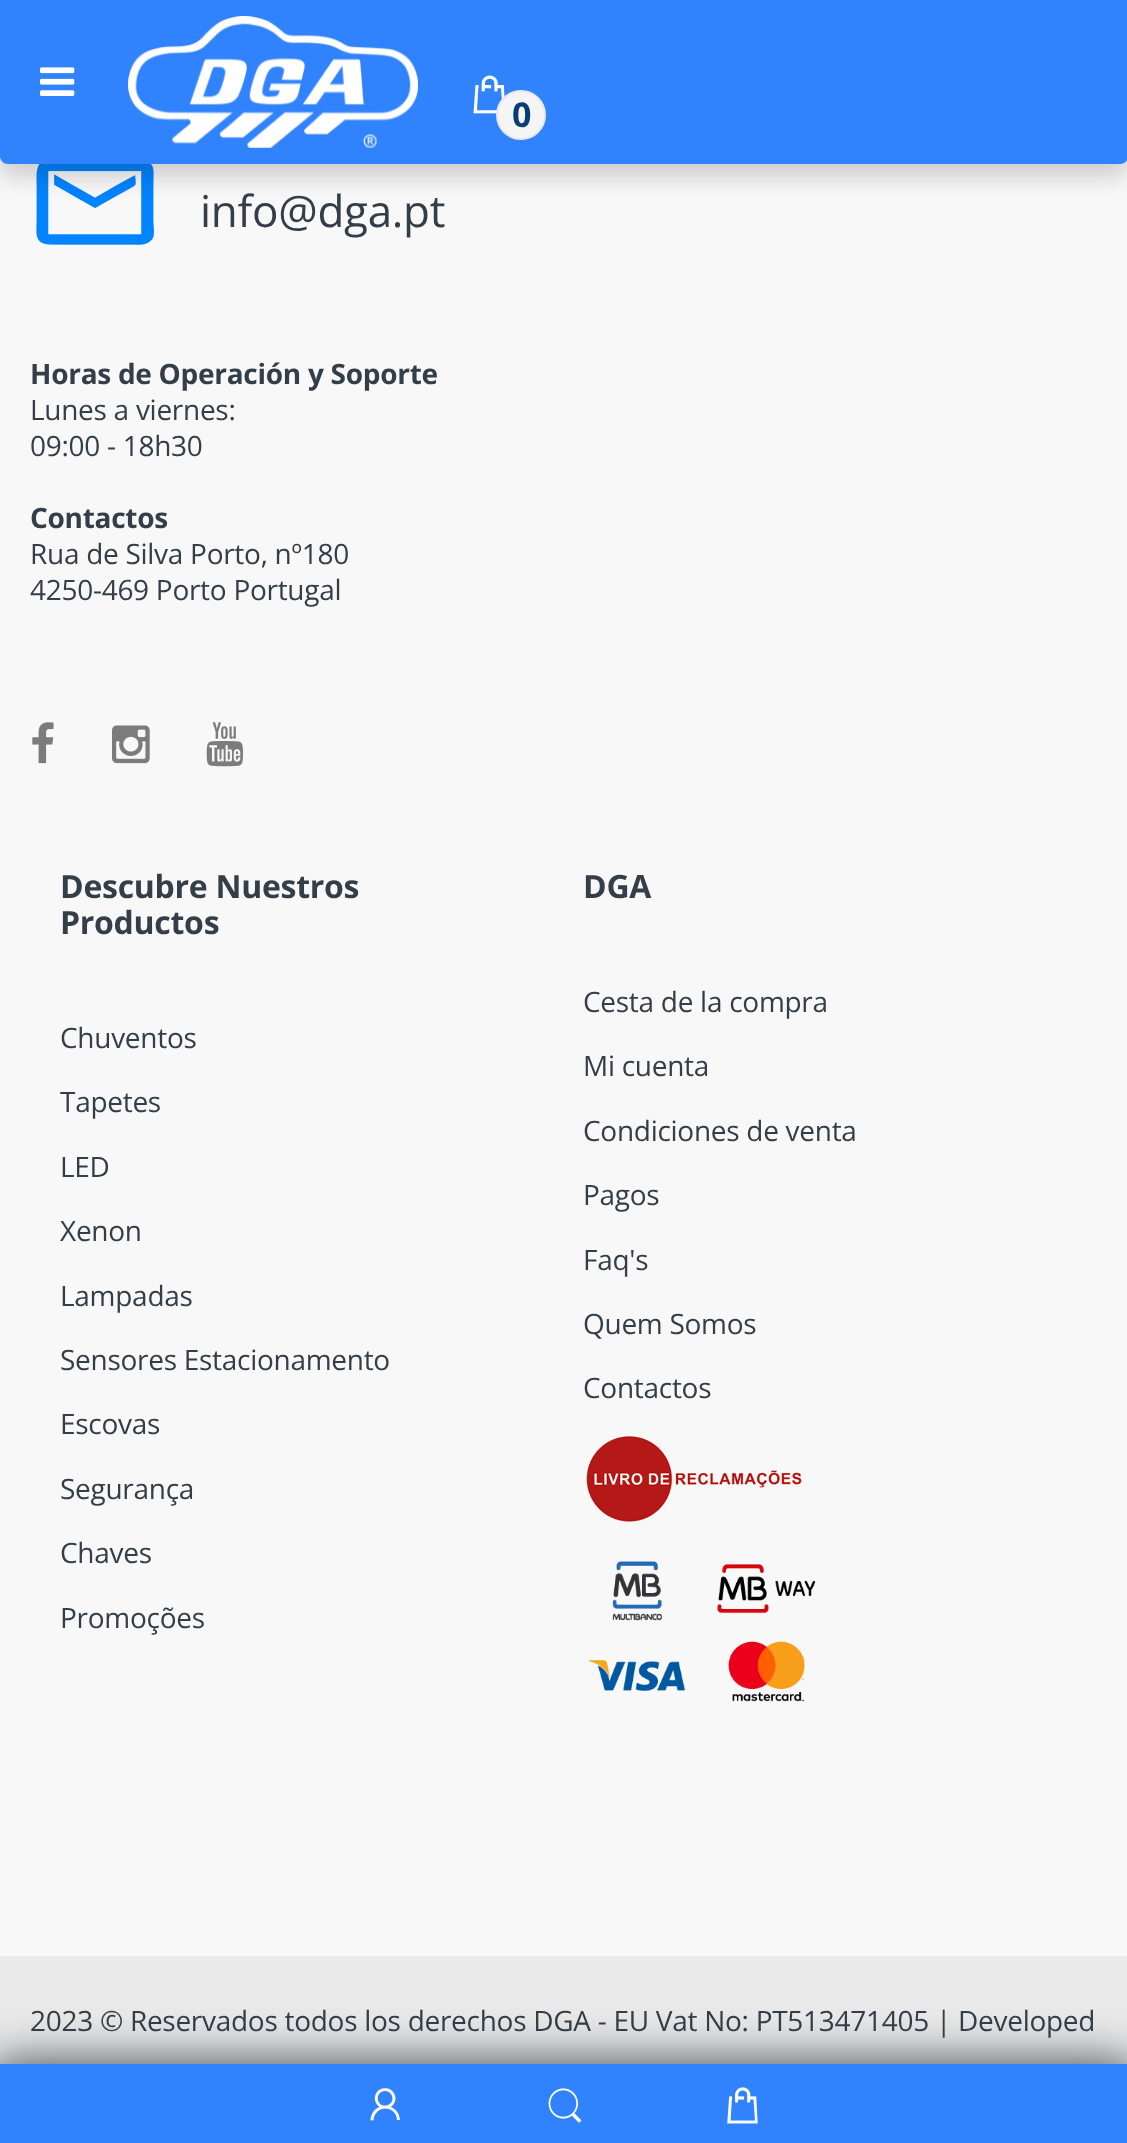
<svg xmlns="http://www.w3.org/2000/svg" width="1127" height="2143">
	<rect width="100%" height="100%" fill="#F8F8F8" />
	<image x="36" y="164" width="118" height="81" href="assets/img4.png" />
	<rect x="0" y="12" width="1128" height="164" rx="8" fill="#000000" fill-opacity="0.18" filter="blur(12px)" />
	<path d="M0 0H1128V156C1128 160.5 1124.5 164 1120 164H8C3.5 164 0 160.5 0 156Z" fill="#3082FD" />
	<image x="40" y="67" width="35" height="29" href="assets/img1.png" />
	<image x="128" y="16" width="290" height="132" href="assets/img2.png" />
	<image x="473" y="75" width="32" height="39" href="assets/img3.png" />
	<circle cx="521" cy="115" r="24" fill="#F5F5F5" stroke="#E8E8E8" stroke-width="2" />
	<text x="512" y="127" font-family="Open Sans" font-size="34" font-weight="700" letter-spacing="-0.28" fill="#083F73">0</text>
	<text x="200" y="227" font-family="Open Sans" font-size="44" letter-spacing="-0.28" fill="#333E48">info@dga.pt</text>
	<text x="30" y="384" font-family="Open Sans" font-size="28" font-weight="700" letter-spacing="-0.28" fill="#333E48">Horas de Operación y Soporte</text>
	<g font-family="Open Sans" font-size="28" letter-spacing="-0.28" fill="#333E48">
		<text x="30" y="420">Lunes a viernes:</text>
		<text x="30" y="456">09:00 - 18h30</text>
	</g>
	<text x="30" y="528" font-family="Open Sans" font-size="28" font-weight="700" letter-spacing="-0.28" fill="#333E48">Contactos</text>
	<g font-family="Open Sans" font-size="28" letter-spacing="-0.28" fill="#333E48">
		<text x="30" y="564">Rua de Silva Porto, nº180</text>
		<text x="30" y="600">4250-469 Porto Portugal</text>
	</g>
	<image x="32" y="722" width="22" height="42" href="assets/img5.png" />
	<image x="112" y="725" width="38" height="39" href="assets/img6.png" />
	<image x="206" y="722" width="38" height="45" href="assets/img7.png" />
	<g font-family="Open Sans" font-size="32" font-weight="700" letter-spacing="-0.28" fill="#333E48">
		<text x="60" y="898">Descubre Nuestros</text>
		<text x="60" y="934">Productos</text>
	</g>
	<g font-family="Open Sans" font-size="28" letter-spacing="-0.28" fill="#333E48">
		<text x="60" y="1048">Chuventos</text>
		<text x="60" y="1112">Tapetes</text>
		<text x="60" y="1177">LED</text>
		<text x="60" y="1241">Xenon</text>
		<text x="60" y="1306">Lampadas</text>
		<text x="60" y="1370">Sensores Estacionamento</text>
		<text x="60" y="1434">Escovas</text>
		<text x="60" y="1499">Segurança</text>
		<text x="60" y="1563">Chaves</text>
		<text x="60" y="1628">Promoções</text>
	</g>
	<text x="583" y="898" font-family="Open Sans" font-size="32" font-weight="700" letter-spacing="-0.28" fill="#333E48">DGA</text>
	<g font-family="Open Sans" font-size="28" letter-spacing="-0.28" fill="#333E48">
		<text x="583" y="1012">Cesta de la compra</text>
		<text x="583" y="1076">Mi cuenta</text>
		<text x="583" y="1141">Condiciones de venta</text>
		<text x="583" y="1205">Pagos</text>
		<text x="583" y="1270">Faq's</text>
		<text x="583" y="1334">Quem Somos</text>
		<text x="583" y="1398">Contactos</text>
	</g>
	<image x="586" y="1436" width="216" height="86" href="assets/img8.png" />
	<image x="589" y="1561" width="226" height="141" href="assets/img9.png" />
	<rect x="0" y="1956" width="1127" height="108" fill="#EAEAEA" />
	<text x="30" y="2031" font-family="Open Sans" font-size="28" letter-spacing="-0.28" fill="#333E48">2023 © Reservados todos los derechos DGA - EU Vat No: PT513471405 | Developed</text>
	<rect x="-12" y="2064" width="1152" height="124" rx="20" fill="#323E48" filter="blur(25px)" />
	<rect x="0" y="2064" width="1127" height="79" fill="#3082FD" />
	<image x="370" y="2088" width="30" height="33" href="assets/img10.png" />
	<image x="548" y="2088" width="34" height="35" href="assets/img11.png" />
	<image x="727" y="2087" width="31" height="37" href="assets/img12.png" />
</svg>
